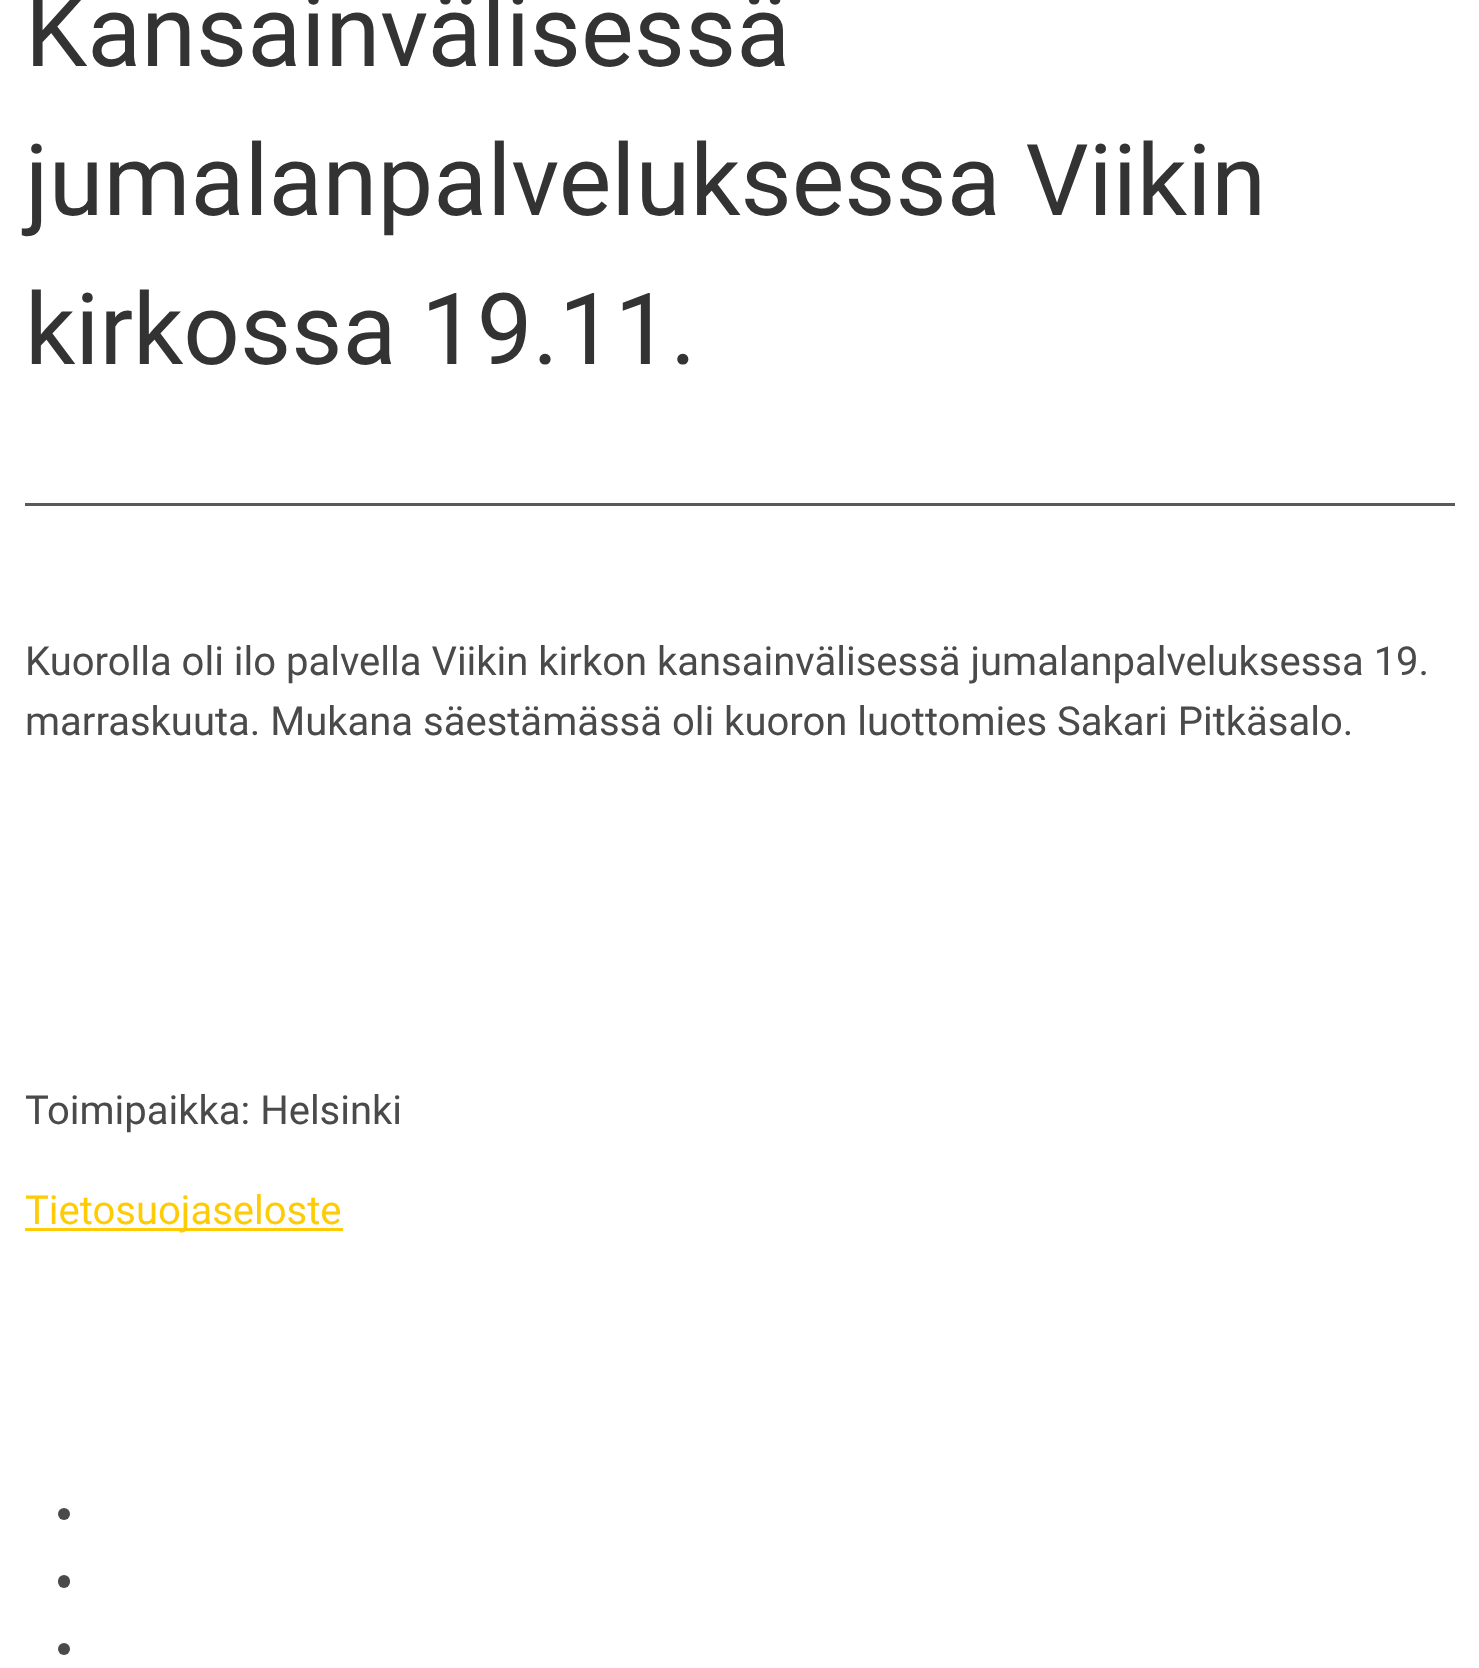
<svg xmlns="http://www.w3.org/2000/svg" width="1479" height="1668">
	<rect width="100%" height="100%" fill="#FFFFFF" />
	<g font-family="Roboto" font-size="99.25" fill="#333333">
		<text x="25" y="66">Kansainvälisessä</text>
		<text x="25" y="215">jumalanpalveluksessa Viikin</text>
		<text x="25" y="364">kirkossa 19.11.</text>
	</g>
	<rect x="25" y="503" width="1430" height="3" fill="#5A5A5A" />
	<g font-family="Roboto" font-size="40" fill="#4A4A4A">
		<text x="25" y="675">Kuorolla oli ilo palvella Viikin kirkon kansainvälisessä jumalanpalveluksessa 19.</text>
		<text x="25" y="735">marraskuuta. Mukana säestämässä oli kuoron luottomies Sakari Pitkäsalo.</text>
		<text x="25" y="1124">Toimipaikka: Helsinki</text>
	</g>
	<rect x="25" y="1228" width="318" height="3" fill="#FFCB05" />
	<text x="25" y="1224" font-family="Roboto" font-size="40" fill="#FFCB05">Tietosuojaseloste</text>
	<circle cx="64" cy="1514" r="6" fill="#4A4A4A" />
	<rect x="58" y="1575" width="12" height="13" rx="6" fill="#4A4A4A" />
	<circle cx="64" cy="1649" r="6" fill="#4A4A4A" />
</svg>
